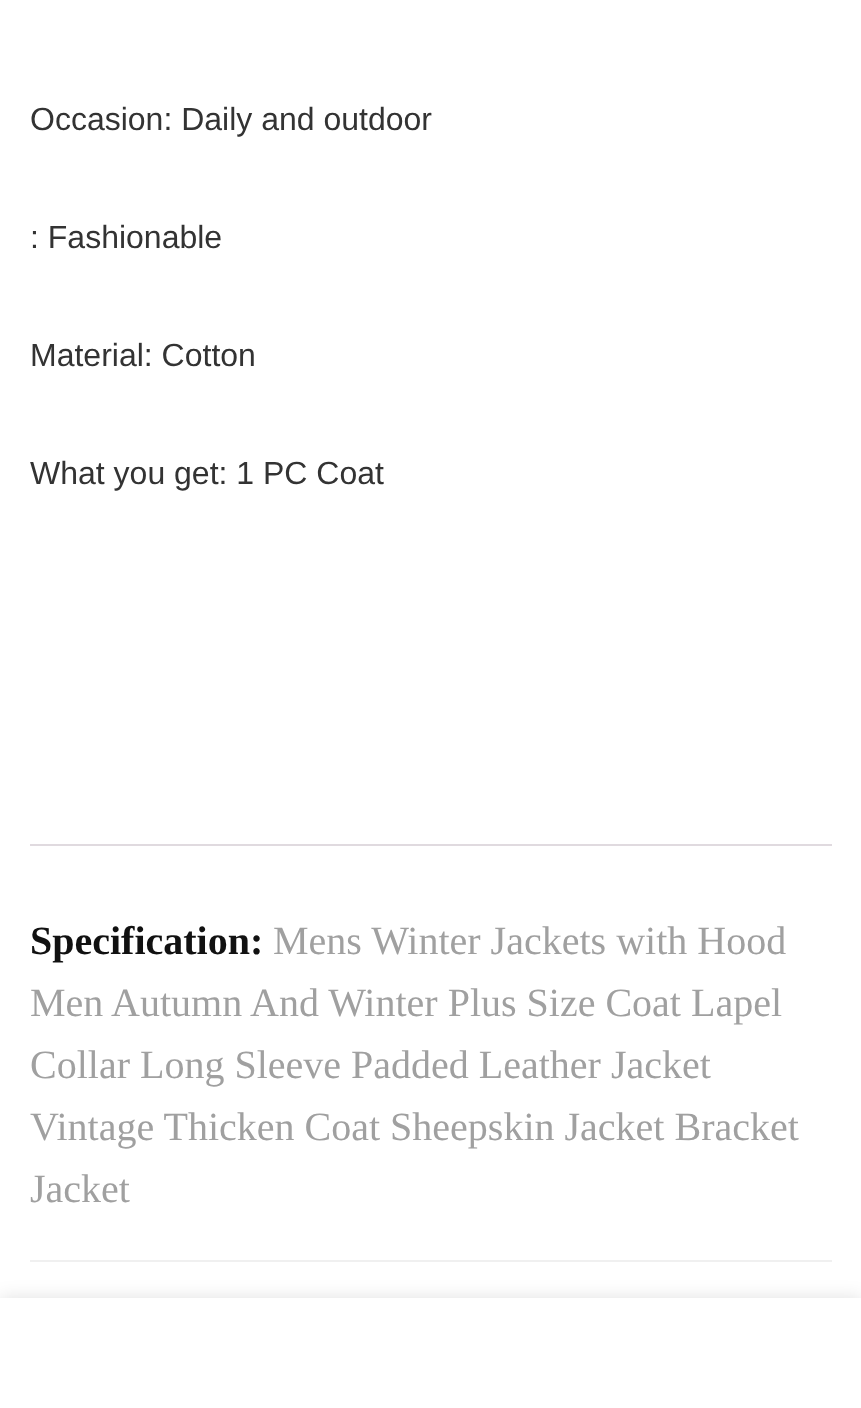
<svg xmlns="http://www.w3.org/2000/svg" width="861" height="1408">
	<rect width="100%" height="100%" fill="#FFFFFF" />
	<rect x="30" y="844" width="802" height="2" fill="#E0DADF" />
	<g font-family="Liberation Sans" font-size="32" fill="#333333">
		<text x="30" y="130">Occasion: Daily and outdoor</text>
		<text x="30" y="248">: Fashionable</text>
		<text x="30" y="366">Material: Cotton</text>
		<text x="30" y="484">What you get: 1 PC Coat</text>
	</g>
	<rect x="30" y="1260" width="802" height="2" fill="#F0F0F0" />
	<text x="30" y="954" font-family="Liberation Serif" font-size="40" font-weight="700" fill="#111111">Specification:</text>
	<g font-family="Liberation Serif" font-size="40" fill="#A0A0A0">
		<text x="273" y="954">Mens Winter Jackets with Hood</text>
		<text x="30" y="1016">Men Autumn And Winter Plus Size Coat Lapel</text>
		<text x="30" y="1078">Collar Long Sleeve Padded Leather Jacket</text>
		<text x="30" y="1140">Vintage Thicken Coat Sheepskin Jacket Bracket</text>
		<text x="30" y="1202">Jacket</text>
	</g>
	<rect x="0" y="1298" width="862" height="110" fill="#000000" fill-opacity="0.12" filter="blur(9px)" />
	<rect x="0" y="1298" width="861" height="110" fill="#FFFFFF" />
</svg>
